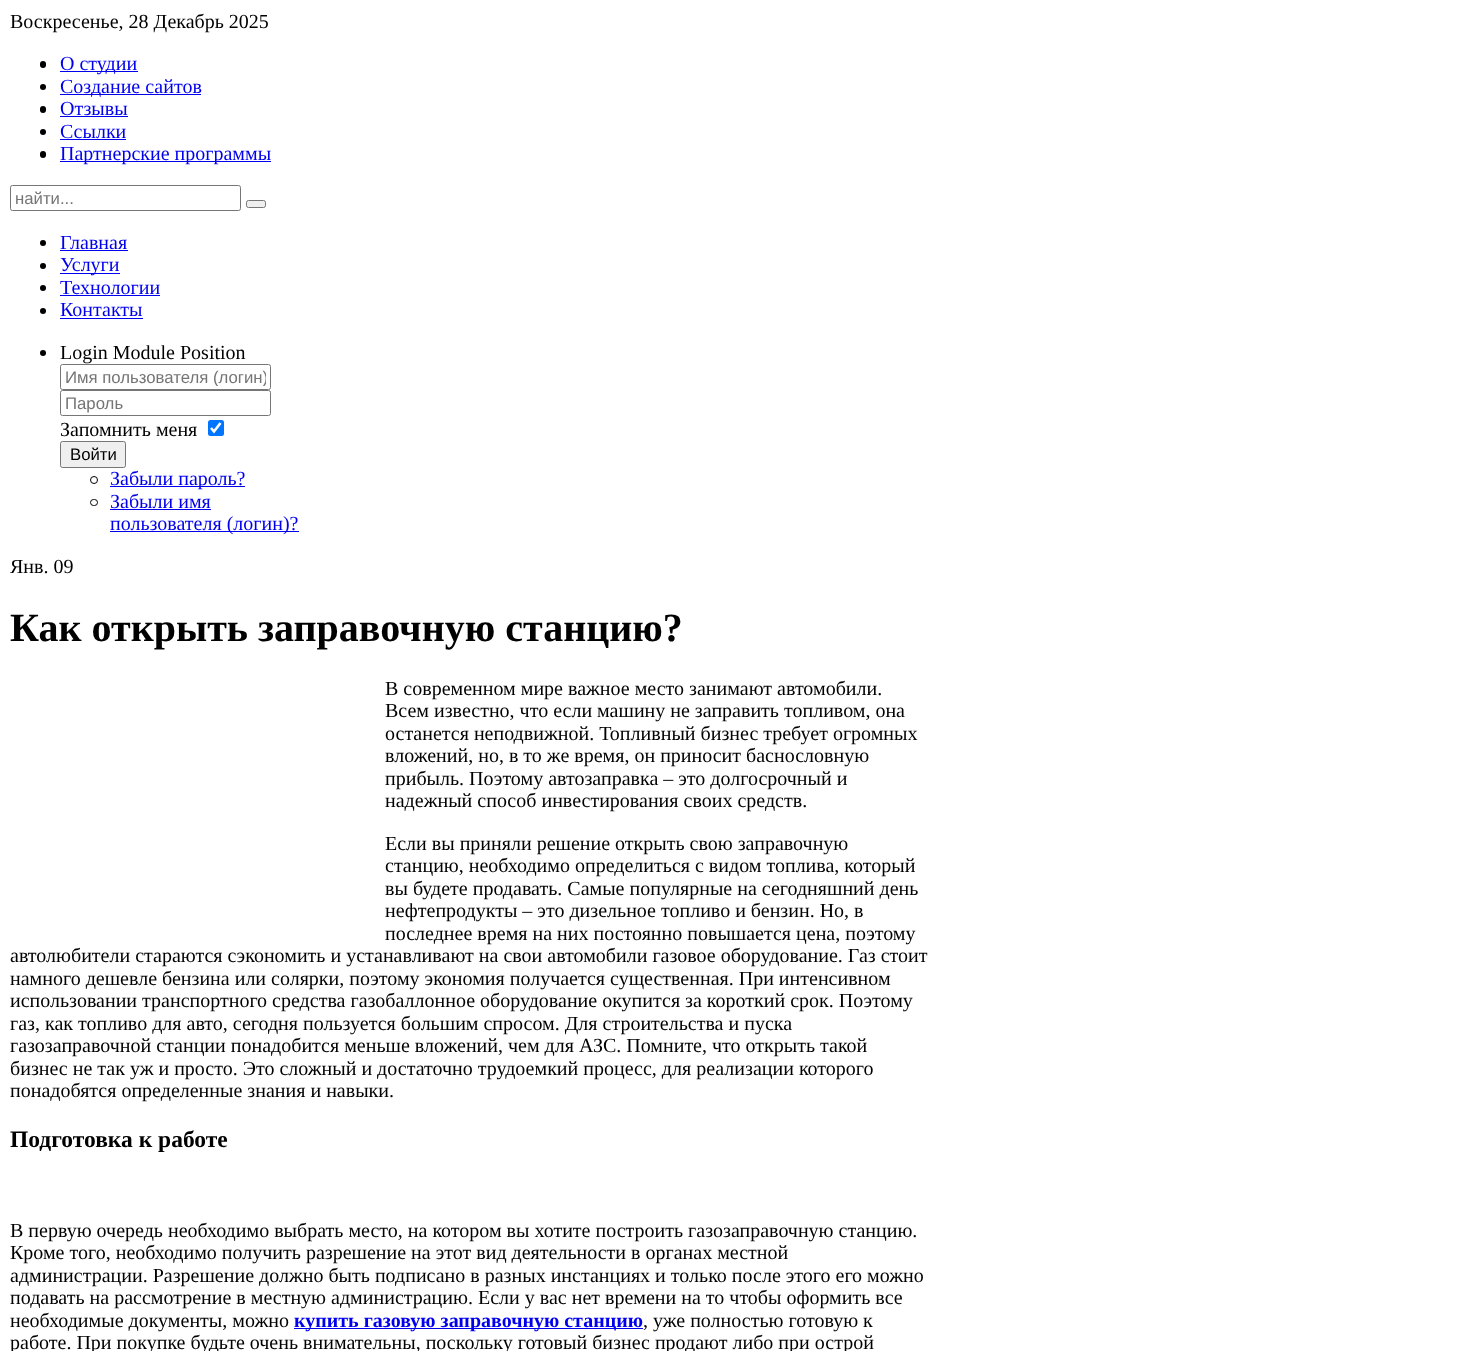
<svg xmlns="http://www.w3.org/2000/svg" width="1480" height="1351">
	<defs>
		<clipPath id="clip1"><rect x="65" y="368" width="201" height="18" /></clipPath>
	</defs>
	<rect width="100%" height="100%" fill="#FFFFFF" />
	<text x="10" y="28" font-family="Liberation Serif" font-size="20" fill="#000000">Воскресенье, 28 Декабрь 2025</text>
	<rect x="40" y="61" width="6" height="7" rx="3" fill="#000000" />
	<rect x="60" y="71" width="78" height="1" fill="#0000EE" />
	<text x="60" y="70" font-family="Liberation Serif" font-size="20" fill="#0000EE">О студии</text>
	<circle cx="43" cy="87" r="3" fill="#000000" />
	<rect x="60" y="94" width="141" height="1" fill="#0000EE" />
	<text x="60" y="93" font-family="Liberation Serif" font-size="20" fill="#0000EE">Создание сайтов</text>
	<rect x="40" y="106" width="6" height="7" rx="3" fill="#000000" />
	<text x="60" y="115" font-family="Liberation Serif" font-size="20" fill="#0000EE">Отзывы</text>
	<rect x="60" y="116" width="68" height="1" fill="#0000EE" />
	<circle cx="43" cy="132" r="3" fill="#000000" />
	<text x="60" y="138" font-family="Liberation Serif" font-size="20" fill="#0000EE">Ссылки</text>
	<rect x="60" y="139" width="66" height="1" fill="#0000EE" />
	<rect x="40" y="151" width="6" height="7" rx="3" fill="#000000" />
	<rect x="60" y="161" width="211" height="1" fill="#0000EE" />
	<text x="60" y="160" font-family="Liberation Serif" font-size="20" fill="#0000EE">Партнерские программы</text>
	<rect x="10.5" y="185.5" width="230" height="25" rx="2" fill="none" stroke="#767676" />
	<text x="15" y="204" font-family="Liberation Sans" font-size="16.75" fill="#757575">найти...</text>
	<rect x="246.5" y="200.5" width="19" height="7" rx="2" fill="#EFEFEF" stroke="#767676" />
	<circle cx="43" cy="243" r="3" fill="#000000" />
	<text x="60" y="249" font-family="Liberation Serif" font-size="20" fill="#0000EE">Главная</text>
	<rect x="60" y="250" width="68" height="1" fill="#0000EE" />
	<circle cx="43" cy="266" r="3" fill="#000000" />
	<rect x="60" y="273" width="60" height="1" fill="#0000EE" />
	<text x="60" y="271" font-family="Liberation Serif" font-size="20" fill="#0000EE">Услуги</text>
	<circle cx="43" cy="288" r="3" fill="#000000" />
	<text x="60" y="294" font-family="Liberation Serif" font-size="20" fill="#0000EE">Технологии</text>
	<rect x="60" y="295" width="100" height="1" fill="#0000EE" />
	<circle cx="43" cy="311" r="3" fill="#000000" />
	<text x="60" y="316" font-family="Liberation Serif" font-size="20" fill="#0000EE">Контакты</text>
	<rect x="60" y="318" width="83" height="1" fill="#0000EE" />
	<circle cx="43" cy="353" r="3" fill="#000000" />
	<text x="60" y="359" font-family="Liberation Serif" font-size="20" fill="#000000">Login Module Position</text>
	<rect x="60.5" y="364.5" width="210" height="25" rx="2" fill="none" stroke="#767676" />
	<g clip-path="url(#clip1)">
		<text x="65" y="383" font-family="Liberation Sans" font-size="16.75" fill="#757575">Имя пользователя (логин)</text>
	</g>
	<rect x="60.5" y="390.5" width="210" height="25" rx="2" fill="none" stroke="#767676" />
	<text x="65" y="409" font-family="Liberation Sans" font-size="16.75" fill="#757575">Пароль</text>
	<text x="60" y="436" font-family="Liberation Serif" font-size="20" fill="#000000">Запомнить меня</text>
	<rect x="208" y="420" width="16" height="16" rx="2.5" fill="#0075FF" />
	<path d="M211 428L214 431.5L220.5 423" fill="none" stroke="#FFFFFF" stroke-width="2.6" />
	<rect x="60.5" y="441.5" width="65" height="26" rx="2" fill="#EFEFEF" stroke="#767676" />
	<text x="70" y="460" font-family="Liberation Sans" font-size="16.75" fill="#000000">Войти</text>
	<circle cx="94" cy="480" r="3.5" fill="none" stroke="#000000" />
	<rect x="110" y="486" width="135" height="1" fill="#0000EE" />
	<text x="110" y="485" font-family="Liberation Serif" font-size="20" fill="#0000EE">Забыли пароль?</text>
	<rect x="90.5" y="499.5" width="7" height="6" rx="3" fill="none" stroke="#000000" />
	<text x="110" y="508" font-family="Liberation Serif" font-size="20" fill="#0000EE">Забыли имя</text>
	<rect x="110" y="509" width="101" height="1" fill="#0000EE" />
	<rect x="110" y="531" width="189" height="1" fill="#0000EE" />
	<text x="110" y="530" font-family="Liberation Serif" font-size="20" fill="#0000EE">пользователя (логин)?</text>
	<text x="10" y="573" font-family="Liberation Serif" font-size="20" fill="#000000">Янв. 09</text>
	<text x="10" y="641" font-family="Liberation Serif" font-size="40" font-weight="700" fill="#000000">Как открыть заправочную станцию?</text>
	<g font-family="Liberation Serif" font-size="20" fill="#000000">
		<text x="385" y="695">В современном мире важное место занимают автомобили.</text>
		<text x="385" y="717">Всем известно, что если машину не заправить топливом, она</text>
		<text x="385" y="740">останется неподвижной. Топливный бизнес требует огромных</text>
		<text x="385" y="762">вложений, но, в то же время, он приносит баснословную</text>
		<text x="385" y="785">прибыль. Поэтому автозаправка – это долгосрочный и</text>
		<text x="385" y="807">надежный способ инвестирования своих средств.</text>
		<text x="385" y="850">Если вы приняли решение открыть свою заправочную</text>
		<text x="385" y="872">станцию, необходимо определиться с видом топлива, который</text>
		<text x="385" y="895">вы будете продавать. Самые популярные на сегодняшний день</text>
		<text x="385" y="917">нефтепродукты – это дизельное топливо и бензин. Но, в</text>
		<text x="385" y="940">последнее время на них постоянно повышается цена, поэтому</text>
		<text x="10" y="962">автолюбители стараются сэкономить и устанавливают на свои автомобили газовое оборудование. Газ стоит</text>
		<text x="10" y="985">намного дешевле бензина или солярки, поэтому экономия получается существенная. При интенсивном</text>
		<text x="10" y="1007">использовании транспортного средства газобаллонное оборудование окупится за короткий срок. Поэтому</text>
		<text x="10" y="1030">газ, как топливо для авто, сегодня пользуется большим спросом. Для строительства и пуска</text>
		<text x="10" y="1052">газозаправочной станции понадобится меньше вложений, чем для АЗС. Помните, что открыть такой</text>
		<text x="10" y="1075">бизнес не так уж и просто. Это сложный и достаточно трудоемкий процесс, для реализации которого</text>
		<text x="10" y="1097">понадобятся определенные знания и навыки.</text>
	</g>
	<text x="10" y="1147" font-family="Liberation Serif" font-size="23.5" font-weight="700" fill="#000000">Подготовка к работе</text>
	<g font-family="Liberation Serif" font-size="20" fill="#000000">
		<text x="10" y="1237">В первую очередь необходимо выбрать место, на котором вы хотите построить газозаправочную станцию.</text>
		<text x="10" y="1259">Кроме того, необходимо получить разрешение на этот вид деятельности в органах местной</text>
		<text x="10" y="1282">администрации. Разрешение должно быть подписано в разных инстанциях и только после этого его можно</text>
		<text x="10" y="1304">подавать на рассмотрение в местную администрацию. Если у вас нет времени на то чтобы оформить все</text>
		<text x="10" y="1327">необходимые документы, можно</text>
	</g>
	<rect x="294" y="1328" width="349" height="1" fill="#0000EE" />
	<text x="294" y="1327" font-family="Liberation Serif" font-size="20" font-weight="700" fill="#0000EE">купить газовую заправочную станцию</text>
	<g font-family="Liberation Serif" font-size="20" fill="#000000">
		<text x="643" y="1327">, уже полностью готовую к</text>
		<text x="10" y="1349">работе. При покупке будьте очень внимательны, поскольку готовый бизнес продают либо при острой</text>
	</g>
</svg>
